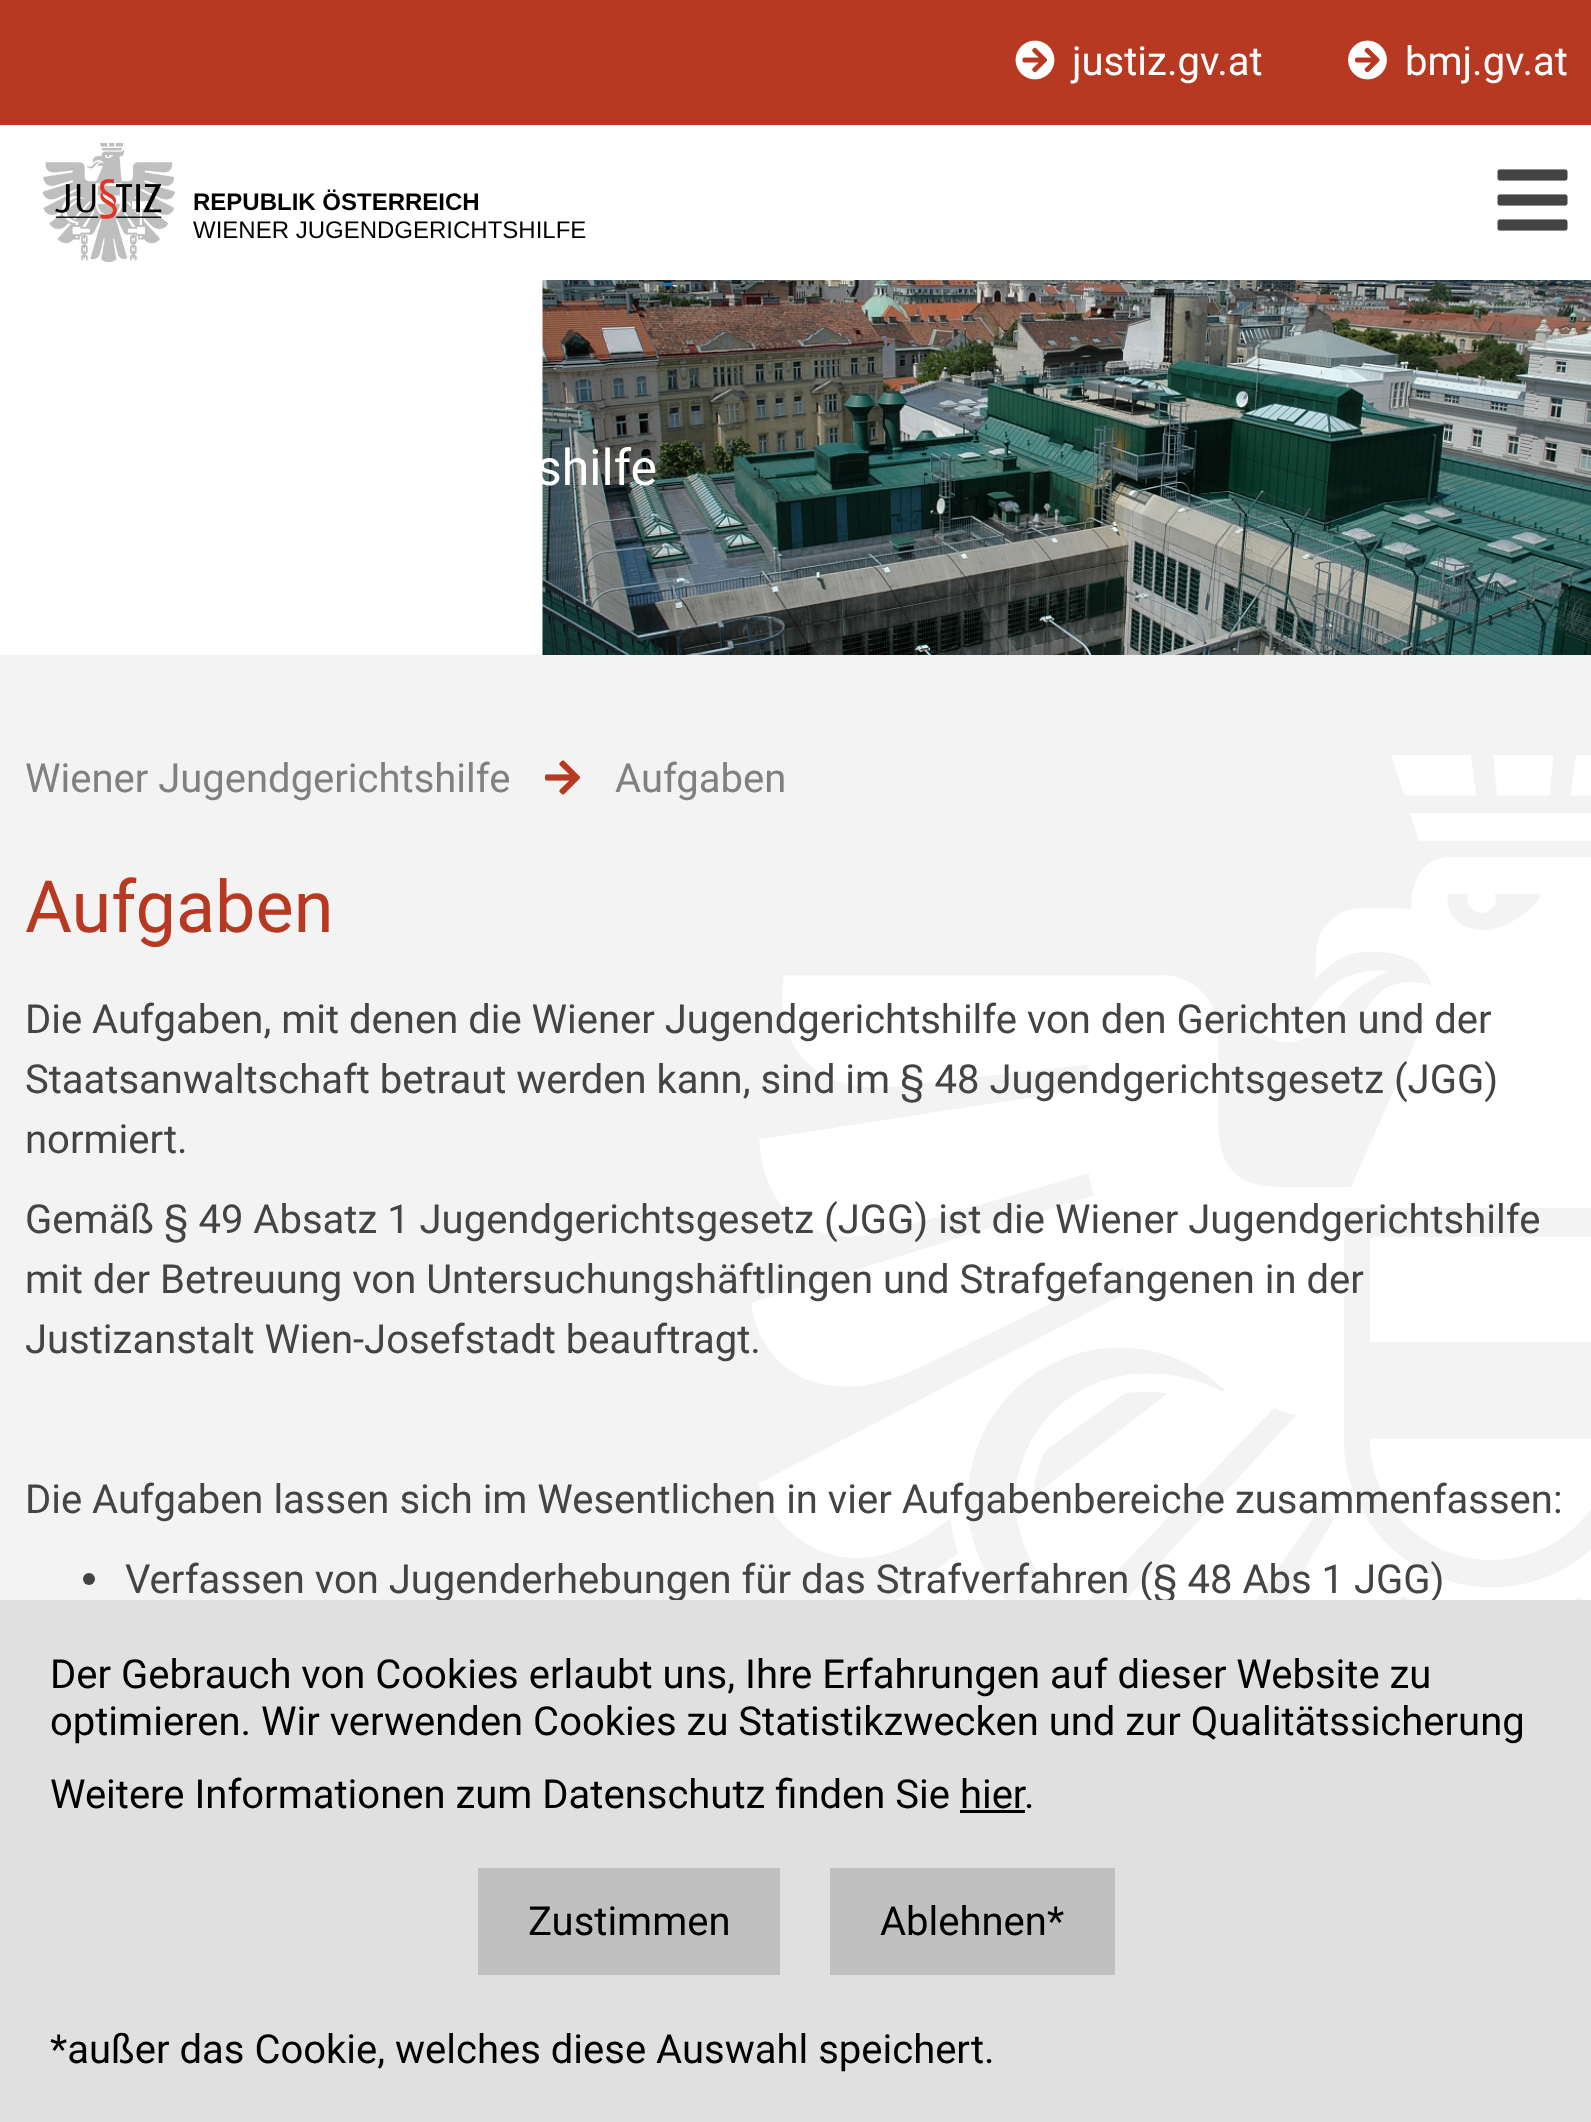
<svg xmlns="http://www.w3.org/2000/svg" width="1591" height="2122">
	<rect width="100%" height="100%" fill="#FFFFFF" />
	<rect x="0" y="0" width="1591" height="125" fill="#B83921" />
	<image x="1015" y="40" width="40" height="40" href="assets/img1.png" />
	<text x="1072" y="75" font-family="Roboto" font-size="40" fill="#FFFFFF">justiz.gv.at</text>
	<image x="1348" y="40" width="39" height="40" href="assets/img2.png" />
	<text x="1405" y="75" font-family="Roboto" font-size="40" fill="#FFFFFF">bmj.gv.at</text>
	<image x="41" y="141" width="134" height="122" href="assets/img3.png" />
	<text x="193" y="210" font-family="Liberation Sans" font-size="24" font-weight="700" fill="#000000">REPUBLIK ÖSTERREICH</text>
	<text x="193" y="238" font-family="Liberation Sans" font-size="24" fill="#000000">WIENER JUGENDGERICHTSHILFE</text>
	<image x="1497" y="169" width="71" height="62" href="assets/img4.png" />
	<image x="542" y="280" width="1049" height="375" href="assets/img5.png" />
	<text x="536" y="485" font-family="Roboto" font-size="50" fill="#FFFFFF">shilfe</text>
	<rect x="0" y="655" width="1591" height="945" fill="#F3F3F3" />
	<image x="751" y="755" width="840" height="845" href="assets/img6.png" />
	<text x="25" y="792" font-family="Roboto" font-size="40" fill="#808080">Wiener Jugendgerichtshilfe</text>
	<image x="545" y="760" width="35" height="35" href="assets/img7.png" />
	<text x="615" y="792" font-family="Roboto" font-size="40" fill="#808080">Aufgaben</text>
	<text x="25" y="932" font-family="Roboto" font-size="72" fill="#B83921">Aufgaben</text>
	<g font-family="Roboto" font-size="40" fill="#444444">
		<text x="25" y="1033">Die Aufgaben, mit denen die Wiener Jugendgerichtshilfe von den Gerichten und der</text>
		<text x="25" y="1093">Staatsanwaltschaft betraut werden kann, sind im § 48 Jugendgerichtsgesetz (JGG)</text>
		<text x="25" y="1153">normiert.</text>
		<text x="25" y="1233">Gemäß § 49 Absatz 1 Jugendgerichtsgesetz (JGG) ist die Wiener Jugendgerichtshilfe</text>
		<text x="25" y="1293">mit der Betreuung von Untersuchungshäftlingen und Strafgefangenen in der</text>
		<text x="25" y="1353">Justizanstalt Wien-Josefstadt beauftragt.</text>
		<text x="25" y="1513">Die Aufgaben lassen sich im Wesentlichen in vier Aufgabenbereiche zusammenfassen:</text>
	</g>
	<circle cx="89" cy="1579" r="6" fill="#444444" />
	<text x="125" y="1593" font-family="Roboto" font-size="40" fill="#444444">Verfassen von Jugenderhebungen für das Strafverfahren (§ 48 Abs 1 JGG)</text>
	<rect x="0" y="1600" width="1591" height="522" fill="#E0E0E0" />
	<g font-family="Roboto" font-size="40" fill="#000000">
		<text x="50" y="1688">Der Gebrauch von Cookies erlaubt uns, Ihre Erfahrungen auf dieser Website zu</text>
		<text x="50" y="1735">optimieren. Wir verwenden Cookies zu Statistikzwecken und zur Qualitätssicherung</text>
		<text x="50" y="1808">Weitere Informationen zum Datenschutz finden Sie hier</text>
		<text x="1024" y="1808">.</text>
	</g>
	<rect x="960" y="1810" width="65" height="3" fill="#000000" />
	<rect x="478" y="1868" width="302" height="107" fill="#C0C0C0" />
	<text x="528" y="1935" font-family="Roboto" font-size="40" fill="#000000">Zustimmen</text>
	<rect x="830" y="1868" width="285" height="107" fill="#C0C0C0" />
	<g font-family="Roboto" font-size="40" fill="#000000">
		<text x="880" y="1935">Ablehnen*</text>
		<text x="50" y="2063">*außer das Cookie, welches diese Auswahl speichert.</text>
	</g>
</svg>
